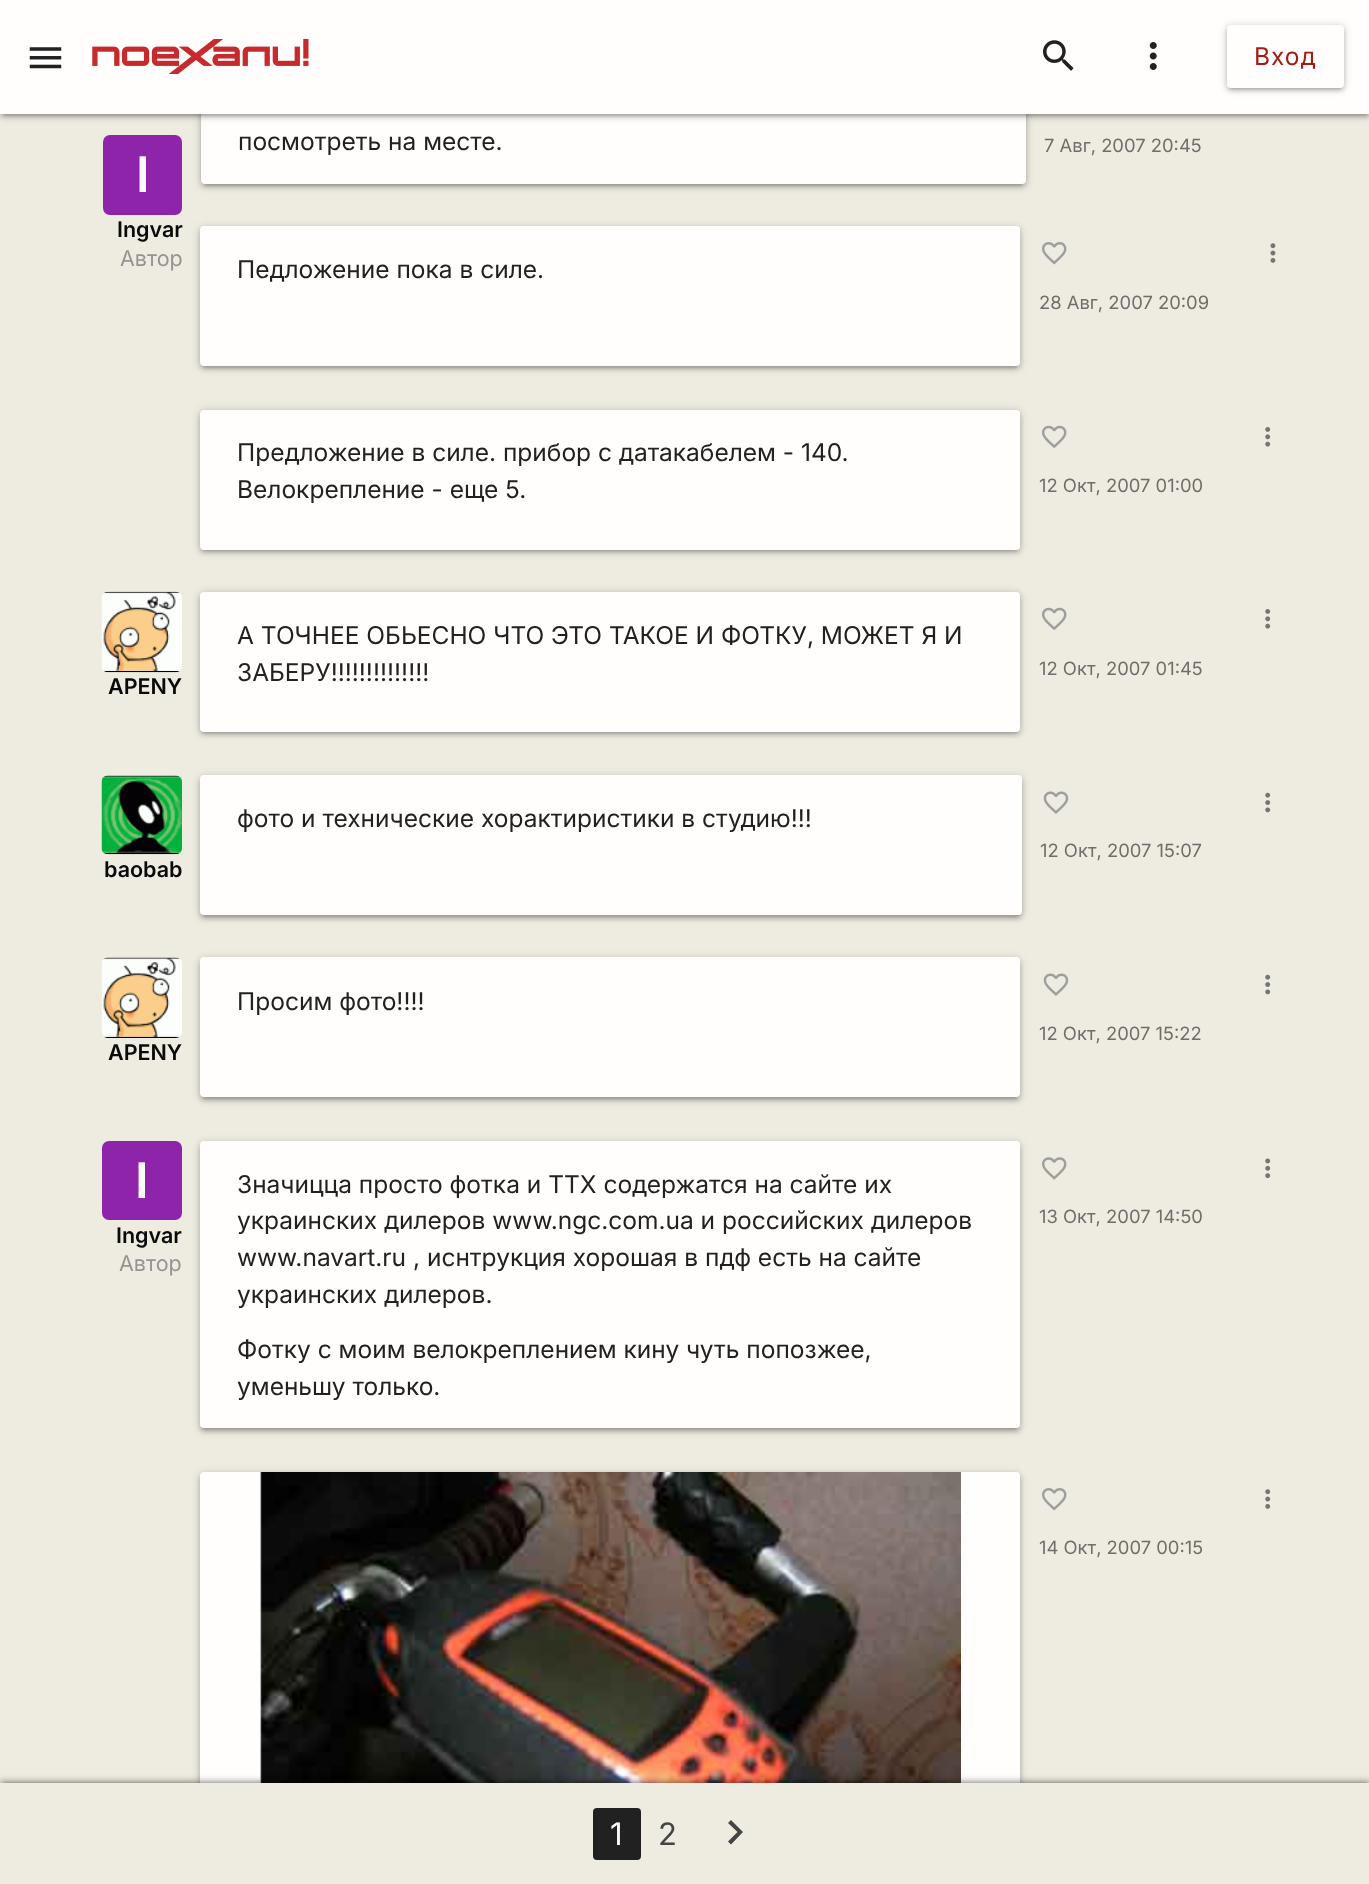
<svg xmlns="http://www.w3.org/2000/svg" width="1369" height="1884">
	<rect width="100%" height="100%" fill="#EEEBE1" />
	<rect x="201" y="26" width="825" height="160" rx="4" fill="#000000" fill-opacity="0.2" filter="blur(4.5px)" />
	<rect x="205" y="33" width="817" height="153" fill="#000000" fill-opacity="0.12" filter="blur(1px)" />
	<rect x="201" y="28" width="825" height="159" rx="4" fill="#000000" fill-opacity="0.14" filter="blur(2px)" />
	<rect x="201" y="25" width="825" height="159" rx="4" fill="#FFFEFC" />
	<rect x="0" y="2" width="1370" height="114" fill="#000000" fill-opacity="0.2" filter="blur(4.5px)" />
	<rect x="4" y="9" width="1363" height="107" fill="#000000" fill-opacity="0.12" filter="blur(1px)" />
	<rect x="0" y="4" width="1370" height="113" fill="#000000" fill-opacity="0.14" filter="blur(2px)" />
	<rect x="0" y="0" width="1369" height="114" fill="#FFFEFC" />
	<image x="29" y="47" width="33" height="22" href="assets/img1.png" />
	<image x="92" y="39" width="217" height="35" href="assets/img2.png" />
	<image x="1043" y="40" width="31" height="31" href="assets/img3.png" />
	<image x="1149" y="42" width="8" height="28" href="assets/img4.png" />
	<rect x="1227" y="26" width="117" height="63" rx="4" fill="#000000" fill-opacity="0.2" filter="blur(4.5px)" />
	<rect x="1230" y="33" width="111" height="56" fill="#000000" fill-opacity="0.12" filter="blur(1px)" />
	<rect x="1227" y="28" width="117" height="63" rx="4" fill="#000000" fill-opacity="0.14" filter="blur(2px)" />
	<rect x="1227" y="25" width="117" height="63" rx="4" fill="#FFFEFC" />
	<text x="1254" y="65" font-family="Inter" font-size="24.5" letter-spacing="1" fill="#A61A14">Вход</text>
	<text x="238" y="150" font-family="Inter" font-size="24.5" fill="#212121">посмотреть на месте.</text>
	<text x="1044" y="152" font-family="Inter" font-size="18.4" fill="#706E6B">7 Авг, 2007 20:45</text>
	<rect x="103" y="135" width="79" height="80" rx="7" fill="#8E24AA" />
	<text x="136" y="192" font-family="Inter" font-size="49" font-weight="600" fill="#FAFAFA">I</text>
	<text x="117" y="237" font-family="Inter" font-size="21.5" font-weight="600" fill="#0A0A0A">Ingvar</text>
	<text x="120" y="266" font-family="Inter" font-size="21.5" fill="#969492">Автор</text>
	<rect x="200" y="228" width="820" height="140" rx="4" fill="#000000" fill-opacity="0.2" filter="blur(4.5px)" />
	<rect x="203" y="235" width="814" height="133" fill="#000000" fill-opacity="0.12" filter="blur(1px)" />
	<rect x="200" y="229" width="820" height="140" rx="4" fill="#000000" fill-opacity="0.14" filter="blur(2px)" />
	<rect x="200" y="226" width="820" height="140" rx="4" fill="#FFFEFC" />
	<text x="237" y="278" font-family="Inter" font-size="24.5" fill="#212121">Педложение пока в силе.</text>
	<image x="1270" y="243" width="6" height="20" href="assets/img5.png" />
	<image x="1042" y="242" width="25" height="23" href="assets/img6.png" />
	<text x="1039" y="309" font-family="Inter" font-size="18.4" fill="#706E6B">28 Авг, 2007 20:09</text>
	<rect x="200" y="411" width="820" height="140" rx="4" fill="#000000" fill-opacity="0.2" filter="blur(4.5px)" />
	<rect x="203" y="418" width="814" height="133" fill="#000000" fill-opacity="0.12" filter="blur(1px)" />
	<rect x="200" y="413" width="820" height="140" rx="4" fill="#000000" fill-opacity="0.14" filter="blur(2px)" />
	<rect x="200" y="410" width="820" height="140" rx="4" fill="#FFFEFC" />
	<g font-family="Inter" font-size="24.5" fill="#212121">
		<text x="237" y="461">Предложение в силе. прибор с датакабелем - 140.</text>
		<text x="237" y="498">Велокрепление - еще 5.</text>
	</g>
	<image x="1265" y="427" width="6" height="20" href="assets/img7.png" />
	<image x="1042" y="425" width="25" height="24" href="assets/img8.png" />
	<text x="1039" y="492" font-family="Inter" font-size="18.4" fill="#706E6B">12 Окт, 2007 01:00</text>
	<rect x="200" y="593" width="820" height="140" rx="4" fill="#000000" fill-opacity="0.2" filter="blur(4.5px)" />
	<rect x="203" y="600" width="814" height="133" fill="#000000" fill-opacity="0.12" filter="blur(1px)" />
	<rect x="200" y="595" width="820" height="140" rx="4" fill="#000000" fill-opacity="0.14" filter="blur(2px)" />
	<rect x="200" y="592" width="820" height="140" rx="4" fill="#FFFEFC" />
	<g font-family="Inter" font-size="24.5" fill="#212121">
		<text x="237" y="644">А ТОЧНЕЕ ОБЬЕСНО ЧТО ЭТО ТАКОЕ И ФОТКУ, МОЖЕТ Я И</text>
		<text x="237" y="681">ЗАБЕРУ!!!!!!!!!!!!!!</text>
	</g>
	<image x="1265" y="609" width="6" height="20" href="assets/img7.png" />
	<image x="1042" y="607" width="25" height="24" href="assets/img8.png" />
	<text x="1039" y="675" font-family="Inter" font-size="18.4" fill="#706E6B">12 Окт, 2007 01:45</text>
	<image x="101" y="591" width="81" height="82" href="assets/img9.png" />
	<text x="108" y="694" font-family="Inter" font-size="21.5" font-weight="600" fill="#0A0A0A">APENY</text>
	<rect x="200" y="777" width="822" height="140" rx="4" fill="#000000" fill-opacity="0.2" filter="blur(4.5px)" />
	<rect x="203" y="784" width="816" height="133" fill="#000000" fill-opacity="0.12" filter="blur(1px)" />
	<rect x="200" y="779" width="822" height="140" rx="4" fill="#000000" fill-opacity="0.14" filter="blur(2px)" />
	<rect x="200" y="775" width="822" height="140" rx="4" fill="#FFFEFC" />
	<text x="237" y="827" font-family="Inter" font-size="24.5" fill="#212121">фото и технические хорактиристики в студию!!!</text>
	<image x="1265" y="792" width="6" height="21" href="assets/img10.png" />
	<image x="1043" y="791" width="26" height="23" href="assets/img11.png" />
	<text x="1040" y="857" font-family="Inter" font-size="18.4" fill="#706E6B">12 Окт, 2007 15:07</text>
	<rect x="102" y="775" width="80" height="79" rx="7" fill="#FFFEFC" />
	<image x="101" y="775" width="81" height="80" href="assets/img12.png" />
	<text x="104" y="877" font-family="Inter" font-size="21.5" font-weight="600" fill="#0A0A0A">baobab</text>
	<rect x="200" y="959" width="820" height="140" rx="4" fill="#000000" fill-opacity="0.2" filter="blur(4.5px)" />
	<rect x="203" y="966" width="814" height="133" fill="#000000" fill-opacity="0.12" filter="blur(1px)" />
	<rect x="200" y="961" width="820" height="140" rx="4" fill="#000000" fill-opacity="0.14" filter="blur(2px)" />
	<rect x="200" y="957" width="820" height="140" rx="4" fill="#FFFEFC" />
	<text x="237" y="1010" font-family="Inter" font-size="24.5" fill="#212121">Просим фото!!!!</text>
	<image x="1265" y="974" width="6" height="21" href="assets/img10.png" />
	<image x="1043" y="973" width="26" height="23" href="assets/img11.png" />
	<text x="1039" y="1040" font-family="Inter" font-size="18.4" fill="#706E6B">12 Окт, 2007 15:22</text>
	<rect x="102" y="957" width="80" height="81" rx="7" fill="#FFFEFC" />
	<image x="101" y="957" width="81" height="81" href="assets/img13.png" />
	<text x="108" y="1060" font-family="Inter" font-size="21.5" font-weight="600" fill="#0A0A0A">APENY</text>
	<rect x="102" y="1141" width="80" height="79" rx="7" fill="#8E24AA" />
	<text x="135" y="1198" font-family="Inter" font-size="49" font-weight="600" fill="#FAFAFA">I</text>
	<text x="116" y="1243" font-family="Inter" font-size="21.5" font-weight="600" fill="#0A0A0A">Ingvar</text>
	<text x="119" y="1271" font-family="Inter" font-size="21.5" fill="#969492">Автор</text>
	<rect x="200" y="1143" width="820" height="287" rx="4" fill="#000000" fill-opacity="0.2" filter="blur(4.5px)" />
	<rect x="203" y="1150" width="814" height="280" fill="#000000" fill-opacity="0.12" filter="blur(1px)" />
	<rect x="200" y="1145" width="820" height="287" rx="4" fill="#000000" fill-opacity="0.14" filter="blur(2px)" />
	<rect x="200" y="1141" width="820" height="287" rx="4" fill="#FFFEFC" />
	<g font-family="Inter" font-size="24.5" fill="#212121">
		<text x="237" y="1193">Значицца просто фотка и ТТХ содержатся на сайте их</text>
		<text x="237" y="1229">украинских дилеров www.ngc.com.ua и российских дилеров</text>
		<text x="237" y="1266">www.navart.ru , иснтрукция хорошая в пдф есть на сайте</text>
		<text x="237" y="1303">украинских дилеров.</text>
		<text x="237" y="1358">Фотку с моим велокреплением кину чуть попозжее,</text>
		<text x="237" y="1395">уменьшу только.</text>
	</g>
	<image x="1265" y="1158" width="6" height="21" href="assets/img14.png" />
	<image x="1042" y="1157" width="25" height="23" href="assets/img15.png" />
	<text x="1039" y="1223" font-family="Inter" font-size="18.4" fill="#706E6B">13 Окт, 2007 14:50</text>
	<rect x="200" y="1474" width="820" height="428" rx="4" fill="#000000" fill-opacity="0.2" filter="blur(4.5px)" />
	<rect x="200" y="1475" width="820" height="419" rx="4" fill="#000000" fill-opacity="0.14" filter="blur(2px)" />
	<rect x="200" y="1472" width="820" height="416" rx="4" fill="#FFFEFC" />
	<image x="260" y="1472" width="701" height="311" href="assets/img16.png" />
	<image x="1265" y="1489" width="6" height="20" href="assets/img17.png" />
	<image x="1042" y="1488" width="25" height="23" href="assets/img6.png" />
	<text x="1039" y="1554" font-family="Inter" font-size="18.4" fill="#706E6B">14 Окт, 2007 00:15</text>
	<rect x="0" y="1782" width="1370" height="101" fill="#000000" fill-opacity="0.2" filter="blur(4.5px)" />
	<rect x="4" y="1782" width="1363" height="94" fill="#000000" fill-opacity="0.12" filter="blur(1px)" />
	<rect x="0" y="1780" width="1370" height="101" fill="#000000" fill-opacity="0.14" filter="blur(2px)" />
	<rect x="0" y="1783" width="1369" height="101" fill="#EEEBE1" />
	<rect x="593" y="1808" width="48" height="52" rx="4" fill="#212121" />
	<text x="610" y="1845" font-family="Inter" font-size="31" fill="#FAFAFA">1</text>
	<text x="658" y="1845" font-family="Inter" font-size="31" fill="#444444">2</text>
	<path d="M731 1820L743 1832L731 1844.5L728 1841.5L737.5 1832L728 1823Z" fill="#444444" />
</svg>
